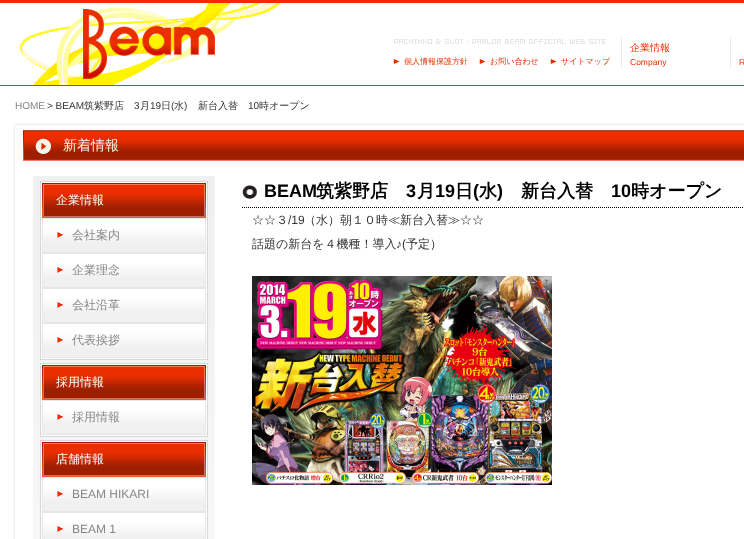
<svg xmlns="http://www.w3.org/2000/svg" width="744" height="539">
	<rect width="100%" height="100%" fill="#FFFFFF" />
	<rect x="0" y="85" width="744" height="1" fill="#EB2E00" />
	<rect x="0" y="0" width="744" height="3" fill="#EB2D00" />
	<image x="19" y="3" width="262" height="82" href="assets/img1.png" />
	<image x="394" y="39" width="212" height="5" href="assets/img2.png" />
	<image x="393" y="59" width="7" height="5" href="assets/img3.png" />
	<text x="404" y="64" font-family="WenQuanYi Zen Hei" font-size="8" font-weight="500" fill="#EB2D00">個人情報保護方針</text>
	<image x="479" y="59" width="7" height="5" href="assets/img3.png" />
	<text x="490" y="64" font-family="WenQuanYi Zen Hei" font-size="8" font-weight="500" fill="#EB2D00">お問い合わせ</text>
	<image x="550" y="59" width="7" height="5" href="assets/img3.png" />
	<text x="561" y="64" font-family="WenQuanYi Zen Hei" font-size="8" font-weight="500" fill="#EB2D00">サイトマップ</text>
	<rect x="621" y="38" width="1" height="30" fill="#E9EAEA" />
	<text x="630" y="51" font-family="WenQuanYi Zen Hei" font-size="10" font-weight="500" fill="#EB2D00">企業情報</text>
	<text x="630" y="65" font-family="Liberation Sans" font-size="8.5" fill="#EB2D00">Company</text>
	<rect x="730" y="38" width="1" height="30" fill="#E9EAEA" />
	<text x="739" y="65" font-family="Liberation Sans" font-size="8.5" fill="#EB2D00">R</text>
	<text x="15" y="109" font-family="Liberation Sans" font-size="10" fill="#878787">HOME</text>
	<text x="47" y="109" font-family="Liberation Sans" font-size="10" fill="#333333">&gt; BEAM</text>
	<text x="84" y="109" font-family="WenQuanYi Zen Hei" font-size="10" font-weight="500" fill="#333333">筑紫野店</text>
	<text x="134" y="109" font-family="Liberation Sans" font-size="10" fill="#333333">3</text>
	<text x="140" y="109" font-family="WenQuanYi Zen Hei" font-size="10" font-weight="500" fill="#333333">月</text>
	<text x="150" y="109" font-family="Liberation Sans" font-size="10" fill="#333333">19</text>
	<text x="161" y="109" font-family="WenQuanYi Zen Hei" font-size="10" font-weight="500" fill="#333333">日</text>
	<text x="171" y="109" font-family="Liberation Sans" font-size="10" fill="#333333">(</text>
	<text x="174" y="109" font-family="WenQuanYi Zen Hei" font-size="10" font-weight="500" fill="#333333">水</text>
	<text x="184" y="109" font-family="Liberation Sans" font-size="10" fill="#333333">)</text>
	<text x="198" y="109" font-family="WenQuanYi Zen Hei" font-size="10" font-weight="500" fill="#333333">新台入替</text>
	<text x="248" y="109" font-family="Liberation Sans" font-size="10" fill="#333333">10</text>
	<text x="259" y="109" font-family="WenQuanYi Zen Hei" font-size="10" font-weight="500" fill="#333333">時オープン</text>
	<image x="13" y="126" width="2" height="413" href="assets/img4.png" />
	<image x="13" y="123" width="731" height="3" href="assets/img5.png" />
	<image x="23" y="130" width="721" height="31" href="assets/img6.png" />
	<text x="63" y="150" font-family="WenQuanYi Zen Hei" font-size="14" font-weight="500" fill="#F5F5EA">新着情報</text>
	<image x="33" y="176" width="182" height="363" href="assets/img7.png" />
	<rect x="40.5" y="181.5" width="167" height="178" fill="#FFFFFF" stroke="#D7D7D7" />
	<image x="42" y="183" width="164" height="35" href="assets/img8.png" />
	<text x="56" y="204" font-family="WenQuanYi Zen Hei" font-size="12" font-weight="500" fill="#FFFFFF">企業情報</text>
	<image x="42" y="218" width="164" height="35" href="assets/img9.png" />
	<text x="72" y="239" font-family="WenQuanYi Zen Hei" font-size="12" font-weight="500" fill="#878787">会社案内</text>
	<image x="42" y="253" width="164" height="35" href="assets/img9.png" />
	<text x="72" y="274" font-family="WenQuanYi Zen Hei" font-size="12" font-weight="500" fill="#878787">企業理念</text>
	<image x="42" y="288" width="164" height="35" href="assets/img9.png" />
	<text x="72" y="309" font-family="WenQuanYi Zen Hei" font-size="12" font-weight="500" fill="#878787">会社沿革</text>
	<image x="42" y="323" width="164" height="35" href="assets/img9.png" />
	<text x="72" y="344" font-family="WenQuanYi Zen Hei" font-size="12" font-weight="500" fill="#878787">代表挨拶</text>
	<rect x="40.5" y="363.5" width="167" height="73" fill="#FFFFFF" stroke="#D7D7D7" />
	<image x="42" y="365" width="164" height="35" href="assets/img8.png" />
	<text x="56" y="386" font-family="WenQuanYi Zen Hei" font-size="12" font-weight="500" fill="#FFFFFF">採用情報</text>
	<image x="42" y="400" width="164" height="35" href="assets/img9.png" />
	<text x="72" y="421" font-family="WenQuanYi Zen Hei" font-size="12" font-weight="500" fill="#878787">採用情報</text>
	<rect x="40.5" y="440.5" width="167" height="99" fill="#FFFFFF" stroke="#D7D7D7" />
	<image x="42" y="442" width="164" height="35" href="assets/img8.png" />
	<text x="56" y="463" font-family="WenQuanYi Zen Hei" font-size="12" font-weight="500" fill="#FFFFFF">店舗情報</text>
	<image x="42" y="477" width="164" height="35" href="assets/img9.png" />
	<text x="72" y="498" font-family="Liberation Sans" font-size="12" fill="#878787">BEAM HIKARI</text>
	<image x="42" y="512" width="164" height="27" href="assets/img10.png" />
	<text x="72" y="533" font-family="Liberation Sans" font-size="12" fill="#878787">BEAM 1</text>
	<image x="242" y="185" width="15" height="14" href="assets/img11.png" />
	<path d="M242 207.5H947" fill="none" stroke="#000000" stroke-dasharray="1 1" />
	<text x="264" y="197" font-family="Liberation Sans" font-size="18" font-weight="700" fill="#000000">BEAM</text>
	<text x="316" y="197" font-family="WenQuanYi Zen Hei" font-size="18" font-weight="700" fill="#000000">筑紫野店</text>
	<text x="406" y="197" font-family="Liberation Sans" font-size="18" font-weight="700" fill="#000000">3</text>
	<text x="417" y="197" font-family="WenQuanYi Zen Hei" font-size="18" font-weight="700" fill="#000000">月</text>
	<text x="435" y="197" font-family="Liberation Sans" font-size="18" font-weight="700" fill="#000000">19</text>
	<text x="455" y="197" font-family="WenQuanYi Zen Hei" font-size="18" font-weight="700" fill="#000000">日</text>
	<text x="473" y="197" font-family="Liberation Sans" font-size="18" font-weight="700" fill="#000000">(</text>
	<text x="479" y="197" font-family="WenQuanYi Zen Hei" font-size="18" font-weight="700" fill="#000000">水</text>
	<text x="497" y="197" font-family="Liberation Sans" font-size="18" font-weight="700" fill="#000000">)</text>
	<text x="521" y="197" font-family="WenQuanYi Zen Hei" font-size="18" font-weight="700" fill="#000000">新台入替</text>
	<text x="611" y="197" font-family="Liberation Sans" font-size="18" font-weight="700" fill="#000000">10</text>
	<text x="631" y="197" font-family="WenQuanYi Zen Hei" font-size="18" font-weight="700" fill="#000000">時オープン</text>
	<text x="252" y="224" font-family="WenQuanYi Zen Hei" font-size="12" font-weight="500" fill="#333333">☆☆３</text>
	<text x="288" y="224" font-family="Liberation Sans" font-size="12" fill="#333333">/19</text>
	<g font-family="WenQuanYi Zen Hei" font-size="12" font-weight="500" fill="#333333">
		<text x="304" y="224">（水）朝１０時≪新台入替≫☆☆</text>
		<text x="252" y="248">話題の新台を４機種！導入</text>
	</g>
	<text x="396" y="248" font-family="Liberation Sans" font-size="12" fill="#333333">♪(</text>
	<text x="406" y="248" font-family="WenQuanYi Zen Hei" font-size="12" font-weight="500" fill="#333333">予定）</text>
	<image x="252" y="276" width="300" height="209" href="assets/img12.png" />
</svg>
